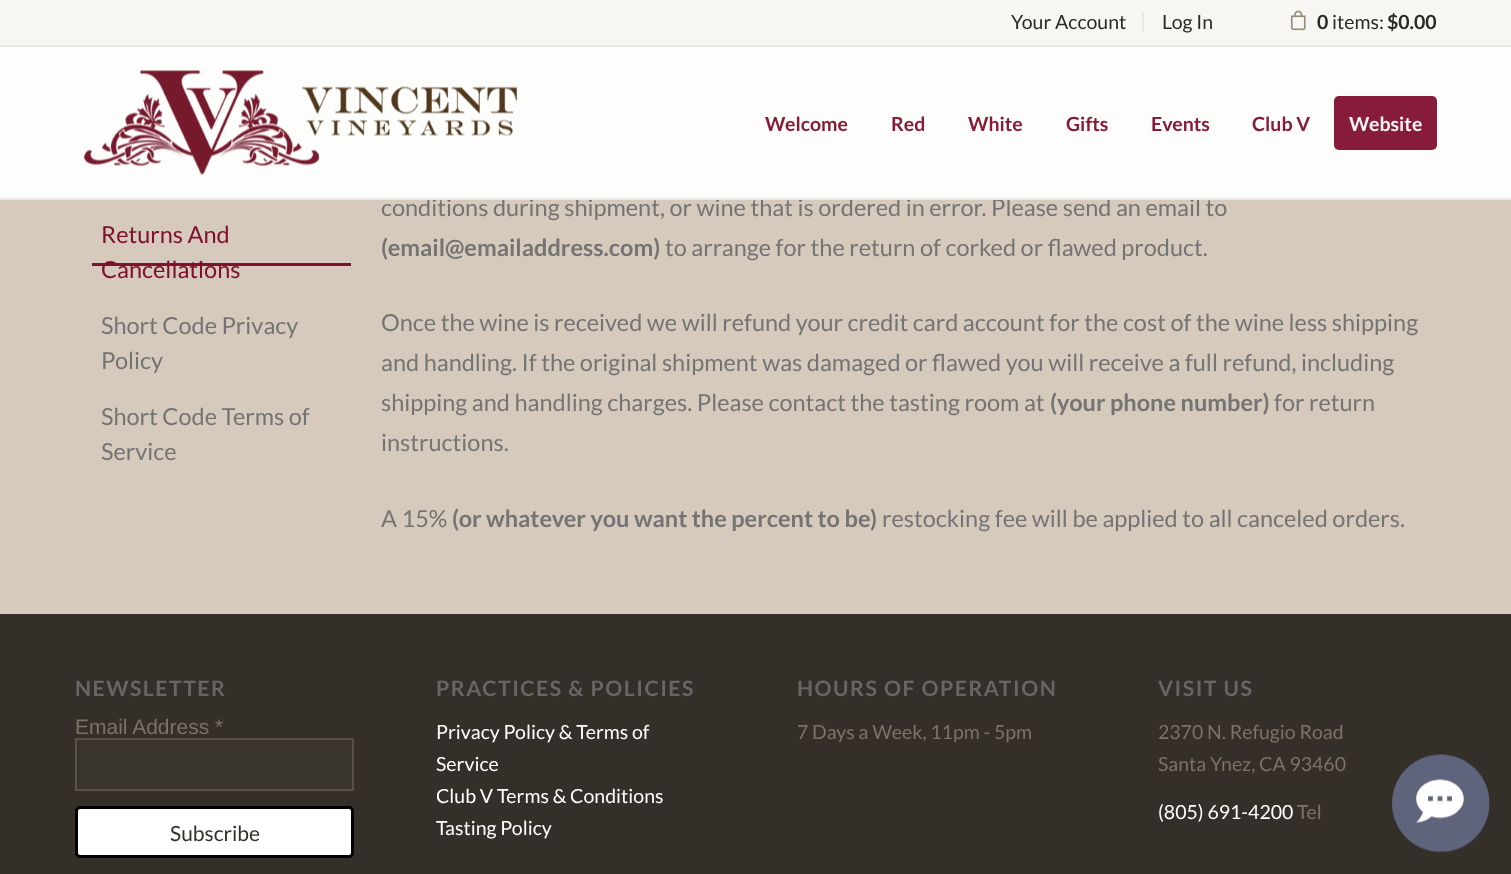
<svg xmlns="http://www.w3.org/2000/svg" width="1511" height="874">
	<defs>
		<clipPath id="clip1"><rect x="437" y="699" width="279" height="162" /></clipPath>
	</defs>
	<rect width="100%" height="100%" fill="#342F29" />
	<rect x="0" y="0" width="1511" height="614" fill="#D6CABD" />
	<text x="381" y="216" font-family="Lato" font-size="23.5" fill="#747474">conditions during shipment, or wine that is ordered in error. Please send an email to</text>
	<rect x="0" y="0" width="1511" height="200" fill="#FFFFFF" fill-opacity="0.95" />
	<rect x="0" y="198" width="1511" height="2" fill="#E8E8E8" fill-opacity="0.95" />
	<rect x="0" y="0" width="1511" height="45" fill="#F8F6F2" fill-opacity="0.95" />
	<rect x="0" y="45" width="1511" height="2" fill="#ECE9E3" />
	<rect x="1142" y="12" width="2" height="20" fill="#E7E7E6" />
	<g font-family="Lato" font-size="19.5" fill="#292928">
		<text x="1011" y="29">Your Account</text>
		<text x="1162" y="29">Log In</text>
	</g>
	<image x="1290" y="10" width="16" height="21" href="assets/img1.png" />
	<text x="1317" y="29" font-family="Lato" font-size="19.5" font-weight="700" fill="#292928">0</text>
	<text x="1332" y="29" font-family="Lato" font-size="19.5" fill="#292928">items:</text>
	<text x="1387" y="29" font-family="Lato" font-size="19.5" font-weight="700" fill="#292928">$0.00</text>
	<image x="84" y="70" width="433" height="105" href="assets/img2.png" />
	<g font-family="Lato" font-size="19.5" font-weight="700" fill="#861C38">
		<text x="765" y="131">Welcome</text>
		<text x="891" y="131">Red</text>
		<text x="968" y="131">White</text>
		<text x="1066" y="131">Gifts</text>
		<text x="1151" y="131">Events</text>
		<text x="1252" y="131">Club V</text>
	</g>
	<rect x="1334" y="96" width="103" height="54" rx="5" fill="#80102E" fill-opacity="0.95" />
	<text x="1349" y="131" font-family="Lato" font-size="19.5" font-weight="700" fill="#F9F4F5">Website</text>
	<rect x="92" y="263" width="259" height="3" fill="#80102E" />
	<g font-family="Lato" font-size="23.5" fill="#80102E">
		<text x="101" y="243">Returns And</text>
		<text x="101" y="278">Cancellations</text>
	</g>
	<g font-family="Lato" font-size="23.5" fill="#747474">
		<text x="101" y="334">Short Code Privacy</text>
		<text x="101" y="369">Policy</text>
		<text x="101" y="425">Short Code Terms of</text>
		<text x="101" y="460">Service</text>
	</g>
	<text x="381" y="256" font-family="Lato" font-size="23.5" font-weight="700" fill="#747474">(email@emailaddress.com)</text>
	<g font-family="Lato" font-size="23.5" fill="#747474">
		<text x="665" y="256">to arrange for the return of corked or flawed product.</text>
		<text x="381" y="331">Once the wine is received we will refund your credit card account for the cost of the wine less shipping</text>
		<text x="381" y="371">and handling. If the original shipment was damaged or flawed you will receive a full refund, including</text>
		<text x="381" y="411">shipping and handling charges. Please contact the tasting room at</text>
	</g>
	<text x="1050" y="411" font-family="Lato" font-size="23.5" font-weight="700" fill="#747474">(your phone number)</text>
	<g font-family="Lato" font-size="23.5" fill="#747474">
		<text x="1274" y="411">for return</text>
		<text x="381" y="451">instructions.</text>
		<text x="381" y="527">A 15%</text>
	</g>
	<text x="452" y="527" font-family="Lato" font-size="23.5" font-weight="700" fill="#747474">(or whatever you want the percent to be)</text>
	<text x="882" y="527" font-family="Lato" font-size="23.5" fill="#747474">restocking fee will be applied to all canceled orders.</text>
	<text x="75" y="696" font-family="Lato" font-size="21.25" font-weight="700" letter-spacing="1.5" fill="#666666">NEWSLETTER</text>
	<text x="75" y="734" font-family="Liberation Sans" font-size="21" fill="#7B7368">Email Address *</text>
	<rect x="76" y="739" width="277" height="51" fill="#39342D" stroke="#575149" stroke-width="2" />
	<rect x="76.5" y="807.5" width="276" height="49" rx="3.5" fill="#FFFFFF" stroke="#000000" stroke-width="3" />
	<text x="170" y="841" font-family="Lato" font-size="21" fill="#342F29">Subscribe</text>
	<text x="436" y="696" font-family="Lato" font-size="21.25" font-weight="700" letter-spacing="1.5" fill="#666666">PRACTICES &amp; POLICIES</text>
	<g font-family="Lato" font-size="19.5" fill="#FFFFFF">
		<text x="436" y="739">Privacy Policy &amp; Terms of</text>
		<text x="436" y="771">Service</text>
	</g>
	<g clip-path="url(#clip1)">
		<text x="436" y="803" font-family="Lato" font-size="19.5" fill="#FFFFFF">Club V Terms &amp; Conditions</text>
	</g>
	<text x="436" y="835" font-family="Lato" font-size="19.5" fill="#FFFFFF">Tasting Policy</text>
	<text x="797" y="696" font-family="Lato" font-size="21.25" font-weight="700" letter-spacing="1.5" fill="#666666">HOURS OF OPERATION</text>
	<text x="797" y="739" font-family="Lato" font-size="19.5" fill="#7B7368">7 Days a Week, 11pm - 5pm</text>
	<text x="1158" y="696" font-family="Lato" font-size="21.25" font-weight="700" letter-spacing="1.5" fill="#666666">VISIT US</text>
	<g font-family="Lato" font-size="19.5" fill="#7B7368">
		<text x="1158" y="739">2370 N. Refugio Road</text>
		<text x="1158" y="771">Santa Ynez, CA 93460</text>
	</g>
	<text x="1158" y="819" font-family="Lato" font-size="19.5" fill="#FFFFFF">(805) 691-4200</text>
	<text x="1297" y="819" font-family="Lato" font-size="19.5" fill="#7B7368">Tel</text>
	<image x="1392" y="754" width="98" height="99" href="assets/img3.png" />
</svg>
